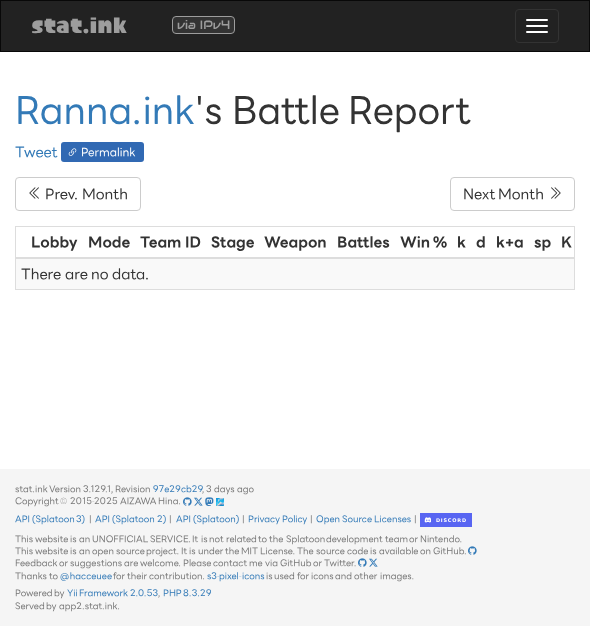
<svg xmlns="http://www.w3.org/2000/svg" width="590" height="626">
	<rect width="100%" height="100%" fill="#FFFFFF" />
	<rect x="0.5" y="0.5" width="589" height="51" fill="#222222" stroke="#080808" />
	<text x="31" y="33" font-family="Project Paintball" font-size="24" font-weight="700" fill="#9D9D9D">stat.ink</text>
	<rect x="172.5" y="16.5" width="62" height="17" rx="3.5" fill="#333333" stroke="#9D9D9D" />
	<text x="177" y="29" font-family="Audiowide" font-size="12" fill="#9D9D9D">via IPv4</text>
	<rect x="515.5" y="9.5" width="43" height="33" rx="3.5" fill="none" stroke="#333333" />
	<rect x="526" y="19" width="22" height="2" rx="1" fill="#FFFFFF" />
	<rect x="526" y="25" width="22" height="2" rx="1" fill="#FFFFFF" />
	<rect x="526" y="31" width="22" height="2" rx="1" fill="#FFFFFF" />
	<text x="15" y="123" font-family="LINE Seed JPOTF" font-size="36" fill="#337AB7">Ranna.ink</text>
	<g font-family="LINE Seed JPOTF" font-size="36" fill="#333333">
		<text x="195" y="123">'s</text>
		<text x="232" y="123">Battle</text>
		<text x="348" y="123">Report</text>
	</g>
	<text x="15" y="157" font-family="LINE Seed JPOTF" font-size="14" fill="#337AB7">Tweet</text>
	<rect x="61" y="142" width="83" height="20" rx="3" fill="#3169B3" />
	<image x="68" y="148" width="9" height="8" href="assets/img1.png" />
	<text x="81" y="156" font-family="LINE Seed JPOTF" font-size="11" fill="#FFFFFF">Permalink</text>
	<rect x="15.5" y="177.5" width="125" height="33" rx="3.5" fill="none" stroke="#CCCCCC" />
	<image x="29" y="187" width="10" height="12" href="assets/img2.png" />
	<g font-family="LINE Seed JPOTF" font-size="14" fill="#333333">
		<text x="45" y="199">Prev.</text>
		<text x="82" y="199">Month</text>
	</g>
	<rect x="450.5" y="177.5" width="124" height="33" rx="3.5" fill="none" stroke="#CCCCCC" />
	<g font-family="LINE Seed JPOTF" font-size="14" fill="#333333">
		<text x="463" y="199">Next</text>
		<text x="498" y="199">Month</text>
	</g>
	<image x="551" y="187" width="10" height="12" href="assets/img3.png" />
	<rect x="15.5" y="226.5" width="559" height="63" fill="none" stroke="#DDDDDD" />
	<g font-family="LINE Seed JPOTF" font-size="14" font-weight="700" fill="#333333">
		<text x="31" y="247">Lobby</text>
		<text x="88" y="247">Mode</text>
		<text x="140" y="247">Team</text>
		<text x="185" y="247">ID</text>
		<text x="211" y="247">Stage</text>
		<text x="264" y="247">Weapon</text>
		<text x="337" y="247">Battles</text>
		<text x="400" y="247">Win</text>
		<text x="433" y="247">%</text>
		<text x="457" y="247">k</text>
		<text x="476" y="247">d</text>
		<text x="496" y="247">k+a</text>
		<text x="534" y="247">sp</text>
	</g>
	<rect x="16" y="257" width="558" height="2" fill="#DDDDDD" />
	<text x="561" y="247" font-family="LINE Seed JPOTF" font-size="14" font-weight="700" fill="#333333">K</text>
	<rect x="16" y="259" width="558" height="30" fill="#F9F9F9" />
	<g font-family="LINE Seed JPOTF" font-size="14" fill="#333333">
		<text x="21" y="279">There</text>
		<text x="65" y="279">are</text>
		<text x="91" y="279">no</text>
		<text x="112" y="279">data.</text>
	</g>
	<rect x="0" y="469" width="590" height="157" fill="#F5F5F5" />
	<g font-family="LINE Seed JPOTF" font-size="8.75" fill="#777777">
		<text x="15" y="492">stat.ink</text>
		<text x="49" y="492">Version</text>
		<text x="83" y="492">3.129.1,</text>
		<text x="115" y="492">Revision</text>
	</g>
	<text x="153" y="492" font-family="LINE Seed JPOTF" font-size="8.75" fill="#337AB7">97e29cb29</text>
	<g font-family="LINE Seed JPOTF" font-size="8.75" fill="#777777">
		<text x="202" y="492">,</text>
		<text x="206" y="492">3</text>
		<text x="214" y="492">days</text>
		<text x="237" y="492">ago</text>
		<text x="15" y="504">Copyright</text>
	</g>
	<text x="60" y="504" font-family="Roboto" font-size="8.75" font-weight="100" fill="#777777">©</text>
	<text x="70" y="504" font-family="LINE Seed JPOTF" font-size="8.75" fill="#777777">2015</text>
	<text x="92" y="504" font-family="Roboto" font-size="8.75" font-weight="100" fill="#777777">-</text>
	<g font-family="LINE Seed JPOTF" font-size="8.75" fill="#777777">
		<text x="94" y="504">2025</text>
		<text x="120" y="504">AIZAWA</text>
		<text x="158" y="504">Hina.</text>
	</g>
	<image x="183" y="497" width="9" height="9" href="assets/img4.png" />
	<image x="194" y="497" width="9" height="9" href="assets/img5.png" />
	<image x="205" y="497" width="9" height="9" href="assets/img6.png" />
	<image x="216" y="498" width="8" height="8" href="assets/img7.png" />
	<g font-family="LINE Seed JPOTF" font-size="8.75" fill="#337AB7">
		<text x="15" y="522">API</text>
		<text x="32" y="522">(Splatoon</text>
		<text x="76" y="522">3)</text>
	</g>
	<text x="89" y="522" font-family="LINE Seed JPOTF" font-size="8.75" fill="#777777">|</text>
	<g font-family="LINE Seed JPOTF" font-size="8.75" fill="#337AB7">
		<text x="95" y="522">API</text>
		<text x="112" y="522">(Splatoon</text>
		<text x="157" y="522">2)</text>
	</g>
	<text x="169" y="522" font-family="LINE Seed JPOTF" font-size="8.75" fill="#777777">|</text>
	<g font-family="LINE Seed JPOTF" font-size="8.75" fill="#337AB7">
		<text x="176" y="522">API</text>
		<text x="193" y="522">(Splatoon)</text>
	</g>
	<text x="242" y="522" font-family="LINE Seed JPOTF" font-size="8.75" fill="#777777">|</text>
	<g font-family="LINE Seed JPOTF" font-size="8.75" fill="#337AB7">
		<text x="248" y="522">Privacy</text>
		<text x="282" y="522">Policy</text>
	</g>
	<text x="310" y="522" font-family="LINE Seed JPOTF" font-size="8.75" fill="#777777">|</text>
	<g font-family="LINE Seed JPOTF" font-size="8.75" fill="#337AB7">
		<text x="316" y="522">Open</text>
		<text x="342" y="522">Source</text>
		<text x="374" y="522">Licenses</text>
	</g>
	<text x="414" y="522" font-family="LINE Seed JPOTF" font-size="8.75" fill="#777777">|</text>
	<image x="420" y="513" width="52" height="14" href="assets/img8.png" />
	<g font-family="LINE Seed JPOTF" font-size="8.75" fill="#777777">
		<text x="15" y="542">This</text>
		<text x="35" y="542">website</text>
		<text x="70" y="542">is</text>
		<text x="79" y="542">an</text>
		<text x="92" y="542">UNOFFICIAL</text>
		<text x="150" y="542">SERVICE.</text>
		<text x="192" y="542">It</text>
		<text x="201" y="542">is</text>
		<text x="209" y="542">not</text>
		<text x="226" y="542">related</text>
		<text x="258" y="542">to</text>
		<text x="269" y="542">the</text>
		<text x="286" y="542">Splatoon</text>
		<text x="326" y="542">development</text>
		<text x="385" y="542">team</text>
		<text x="409" y="542">or</text>
		<text x="420" y="542">Nintendo.</text>
		<text x="15" y="554">This</text>
		<text x="35" y="554">website</text>
		<text x="70" y="554">is</text>
		<text x="79" y="554">an</text>
		<text x="92" y="554">open</text>
		<text x="116" y="554">source</text>
		<text x="146" y="554">project.</text>
		<text x="181" y="554">It</text>
		<text x="189" y="554">is</text>
		<text x="198" y="554">under</text>
		<text x="225" y="554">the</text>
		<text x="241" y="554">MIT</text>
		<text x="260" y="554">License.</text>
		<text x="297" y="554">The</text>
		<text x="316" y="554">source</text>
		<text x="347" y="554">code</text>
		<text x="370" y="554">is</text>
		<text x="379" y="554">available</text>
		<text x="420" y="554">on</text>
		<text x="433" y="554">GitHub.</text>
	</g>
	<image x="468" y="546" width="9" height="9" href="assets/img4.png" />
	<g font-family="LINE Seed JPOTF" font-size="8.75" fill="#777777">
		<text x="15" y="566">Feedback</text>
		<text x="59" y="566">or</text>
		<text x="70" y="566">suggestions</text>
		<text x="124" y="566">are</text>
		<text x="140" y="566">welcome.</text>
		<text x="183" y="566">Please</text>
		<text x="213" y="566">contact</text>
		<text x="249" y="566">me</text>
		<text x="265" y="566">via</text>
		<text x="280" y="566">GitHub</text>
		<text x="313" y="566">or</text>
		<text x="324" y="566">Twitter.</text>
	</g>
	<image x="358" y="558" width="9" height="9" href="assets/img4.png" />
	<image x="369" y="558" width="9" height="9" href="assets/img5.png" />
	<g font-family="LINE Seed JPOTF" font-size="8.75" fill="#777777">
		<text x="15" y="579">Thanks</text>
		<text x="49" y="579">to</text>
	</g>
	<text x="60" y="579" font-family="LINE Seed JPOTF" font-size="8.75" fill="#337AB7">@hacceuee</text>
	<g font-family="LINE Seed JPOTF" font-size="8.75" fill="#777777">
		<text x="113" y="579">for</text>
		<text x="127" y="579">their</text>
		<text x="149" y="579">contribution.</text>
	</g>
	<text x="207" y="579" font-family="LINE Seed JPOTF" font-size="8.75" fill="#337AB7">s3</text>
	<text x="217" y="579" font-family="Roboto" font-size="8.75" font-weight="100" fill="#337AB7">-</text>
	<text x="219" y="579" font-family="LINE Seed JPOTF" font-size="8.75" fill="#337AB7">pixel</text>
	<text x="239" y="579" font-family="Roboto" font-size="8.75" font-weight="100" fill="#337AB7">-</text>
	<text x="242" y="579" font-family="LINE Seed JPOTF" font-size="8.75" fill="#337AB7">icons</text>
	<g font-family="LINE Seed JPOTF" font-size="8.75" fill="#777777">
		<text x="266" y="579">is</text>
		<text x="274" y="579">used</text>
		<text x="297" y="579">for</text>
		<text x="311" y="579">icons</text>
		<text x="335" y="579">and</text>
		<text x="354" y="579">other</text>
		<text x="380" y="579">images.</text>
		<text x="15" y="596">Powered</text>
		<text x="54" y="596">by</text>
	</g>
	<g font-family="LINE Seed JPOTF" font-size="8.75" fill="#337AB7">
		<text x="67" y="596">Yii</text>
		<text x="79" y="596">Framework</text>
		<text x="130" y="596">2.0.53</text>
	</g>
	<text x="158" y="596" font-family="LINE Seed JPOTF" font-size="8.75" fill="#777777">,</text>
	<g font-family="LINE Seed JPOTF" font-size="8.75" fill="#337AB7">
		<text x="163" y="596">PHP</text>
		<text x="183" y="596">8.3.29</text>
	</g>
	<g font-family="LINE Seed JPOTF" font-size="8.75" fill="#777777">
		<text x="15" y="609">Served</text>
		<text x="46" y="609">by</text>
		<text x="59" y="609">app2.stat.ink.</text>
	</g>
</svg>
